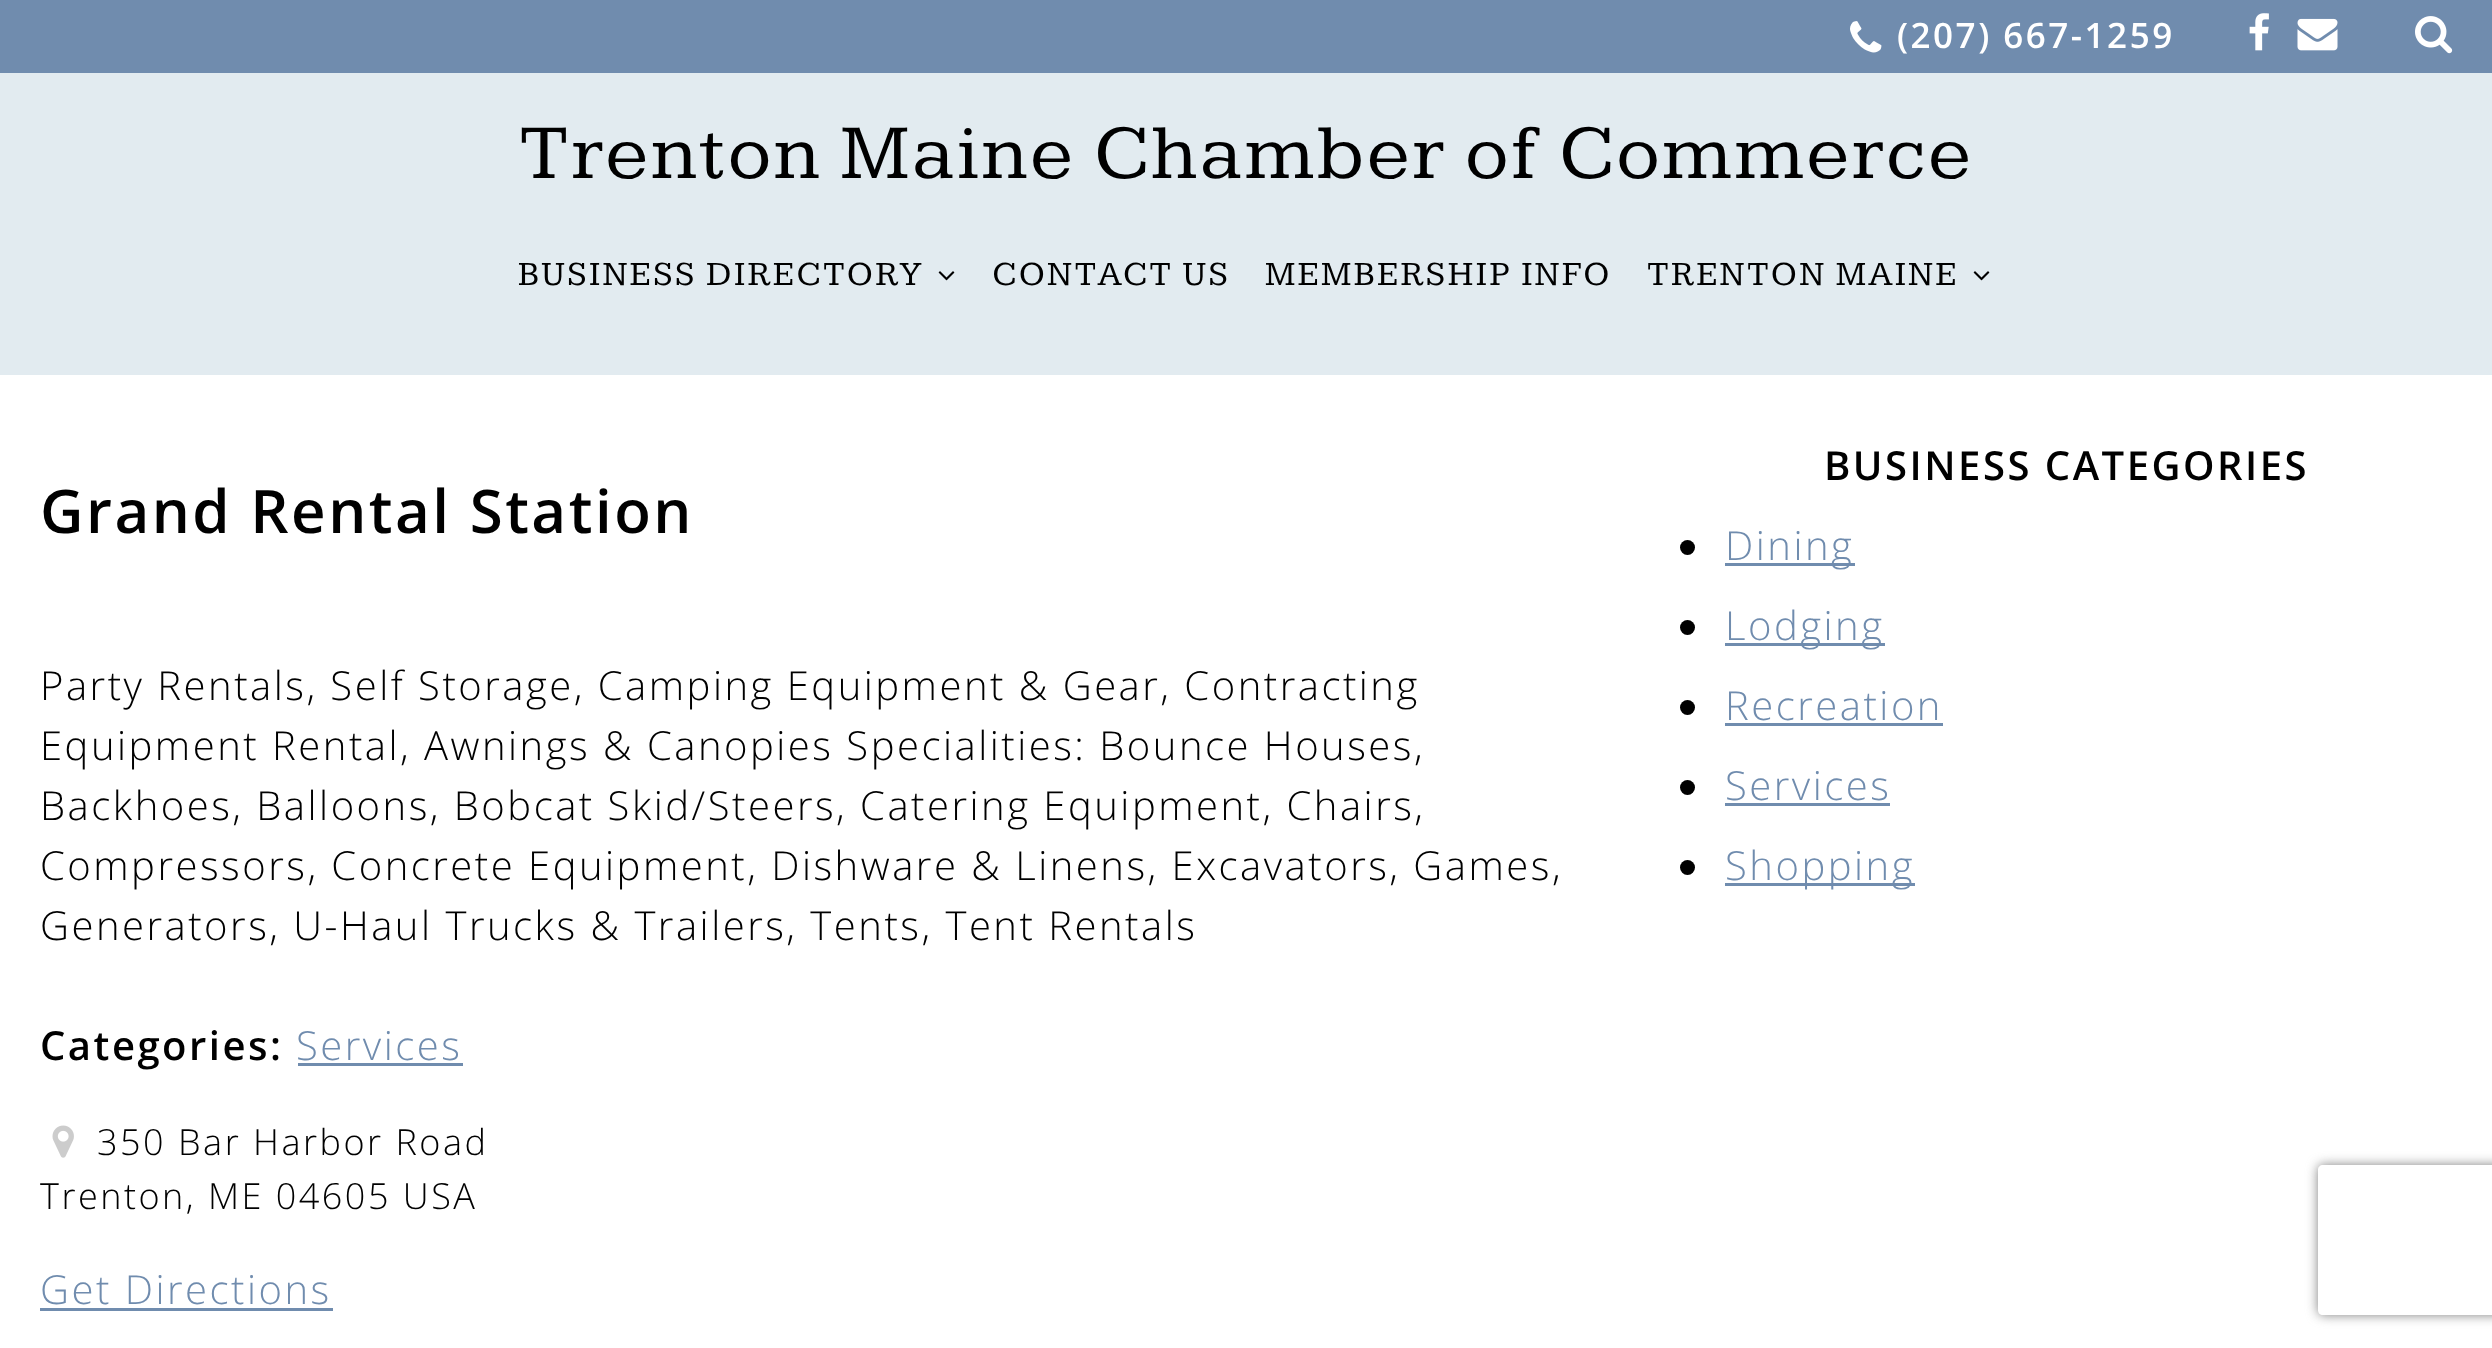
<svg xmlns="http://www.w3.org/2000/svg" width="2492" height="1348">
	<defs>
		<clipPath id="clip1"><path d="M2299 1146H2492V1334H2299ZM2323 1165H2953C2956 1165 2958 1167 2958 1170V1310C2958 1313 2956 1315 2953 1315H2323C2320 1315 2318 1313 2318 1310V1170C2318 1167 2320 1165 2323 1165Z" clip-rule="evenodd" /></clipPath>
	</defs>
	<rect width="100%" height="100%" fill="#E2EBF0" />
	<rect x="0" y="0" width="2492" height="73" fill="#708CAE" />
	<image x="1850" y="21" width="32" height="32" href="assets/img1.png" />
	<text x="1897" y="48" font-family="Open Sans" font-size="35" font-weight="600" letter-spacing="2.5" fill="#FFFFFF">(207) 667-1259</text>
	<image x="2249" y="13" width="20" height="38" href="assets/img2.png" />
	<image x="2297" y="18" width="41" height="33" href="assets/img3.png" />
	<image x="2415" y="16" width="38" height="38" href="assets/img4.png" />
	<text x="519" y="178" font-family="Kameron" font-size="80" letter-spacing="2.5" fill="#000000">Trenton Maine Chamber of Commerce</text>
	<text x="518" y="285" font-family="Kameron" font-size="35" letter-spacing="2.5" fill="#000000">BUSINESS DIRECTORY</text>
	<image x="938" y="271" width="17" height="10" href="assets/img5.png" />
	<g font-family="Kameron" font-size="35" letter-spacing="2.5" fill="#000000">
		<text x="992" y="285">CONTACT US</text>
		<text x="1265" y="285">MEMBERSHIP INFO</text>
		<text x="1647" y="285">TRENTON MAINE</text>
	</g>
	<image x="1973" y="271" width="17" height="10" href="assets/img5.png" />
	<rect x="0" y="375" width="2492" height="973" fill="#FFFFFF" />
	<text x="40" y="533" font-family="Open Sans" font-size="60" font-weight="600" letter-spacing="2.5" fill="#000000">Grand Rental Station</text>
	<g font-family="Open Sans" font-size="40" font-weight="300" letter-spacing="2.5" fill="#000000">
		<text x="40" y="700">Party Rentals, Self Storage, Camping Equipment &amp; Gear, Contracting</text>
		<text x="40" y="760">Equipment Rental, Awnings &amp; Canopies Specialities: Bounce Houses,</text>
		<text x="40" y="820">Backhoes, Balloons, Bobcat Skid/Steers, Catering Equipment, Chairs,</text>
		<text x="40" y="880">Compressors, Concrete Equipment, Dishware &amp; Linens, Excavators, Games,</text>
		<text x="40" y="940">Generators, U-Haul Trucks &amp; Trailers, Tents, Tent Rentals</text>
	</g>
	<text x="40" y="1060" font-family="Open Sans" font-size="40" font-weight="600" letter-spacing="2.5" fill="#000000">Categories:</text>
	<text x="296" y="1060" font-family="Open Sans" font-size="40" font-weight="300" letter-spacing="2.5" fill="#708CAE">Services</text>
	<rect x="298" y="1063" width="165" height="3" fill="#708CAE" />
	<image x="52" y="1125" width="22" height="33" href="assets/img6.png" />
	<g font-family="Open Sans" font-size="36" font-weight="300" letter-spacing="2.5" fill="#000000">
		<text x="97" y="1155">350 Bar Harbor Road</text>
		<text x="40" y="1209">Trenton, ME 04605 USA</text>
	</g>
	<text x="40" y="1304" font-family="Open Sans" font-size="40" font-weight="300" letter-spacing="2.5" fill="#708CAE">Get Directions</text>
	<rect x="40" y="1308" width="293" height="3" fill="#708CAE" />
	<text x="1824" y="480" font-family="Open Sans" font-size="40" font-weight="600" letter-spacing="2.5" fill="#000000">BUSINESS CATEGORIES</text>
	<circle cx="1687.5" cy="547.5" r="7.5" fill="#000000" />
	<rect x="1725" y="563" width="130" height="3" fill="#708CAE" />
	<text x="1725" y="560" font-family="Open Sans" font-size="40" font-weight="300" letter-spacing="2.5" fill="#708CAE">Dining</text>
	<circle cx="1687.5" cy="627.5" r="7.5" fill="#000000" />
	<rect x="1725" y="643" width="160" height="3" fill="#708CAE" />
	<text x="1725" y="640" font-family="Open Sans" font-size="40" font-weight="300" letter-spacing="2.5" fill="#708CAE">Lodging</text>
	<circle cx="1687.5" cy="707.5" r="7.5" fill="#000000" />
	<text x="1725" y="720" font-family="Open Sans" font-size="40" font-weight="300" letter-spacing="2.5" fill="#708CAE">Recreation</text>
	<rect x="1725" y="723" width="218" height="3" fill="#708CAE" />
	<circle cx="1687.5" cy="787.5" r="7.5" fill="#000000" />
	<text x="1725" y="800" font-family="Open Sans" font-size="40" font-weight="300" letter-spacing="2.5" fill="#708CAE">Services</text>
	<rect x="1725" y="803" width="165" height="3" fill="#708CAE" />
	<circle cx="1687.5" cy="867.5" r="7.5" fill="#000000" />
	<rect x="1725" y="883" width="190" height="3" fill="#708CAE" />
	<text x="1725" y="880" font-family="Open Sans" font-size="40" font-weight="300" letter-spacing="2.5" fill="#708CAE">Shopping</text>
	<g clip-path="url(#clip1)">
		<rect x="2318" y="1165" width="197" height="150" rx="5" fill="#808080" filter="blur(6px)" />
	</g>
</svg>
